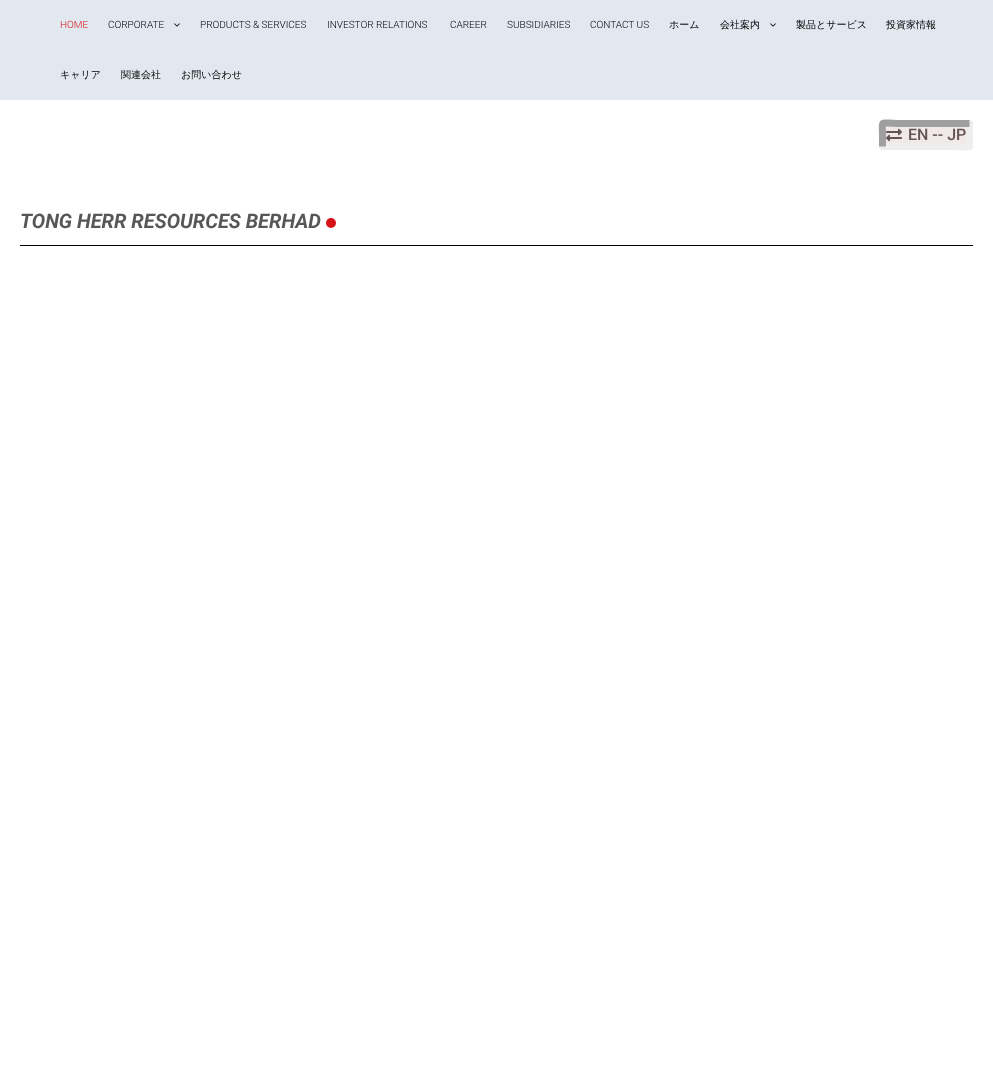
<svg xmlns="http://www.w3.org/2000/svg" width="993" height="1091">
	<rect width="100%" height="100%" fill="#FFFFFF" />
	<rect x="0" y="0" width="993" height="100" fill="#E2E8F0" />
	<text x="60" y="28" font-family="Roboto" font-size="10" font-weight="300" fill="#D51317">HOME</text>
	<text x="108" y="28" font-family="Roboto" font-size="10" font-weight="300" fill="#000000">CORPORATE</text>
	<image x="174" y="23" width="6" height="4" href="assets/img1.png" />
	<g font-family="Roboto" font-size="10" font-weight="300" fill="#000000">
		<text x="200" y="28">PRODUCTS &amp; SERVICES</text>
		<text x="327" y="28">INVESTOR RELATIONS</text>
		<text x="450" y="28">CAREER</text>
		<text x="507" y="28">SUBSIDIARIES</text>
		<text x="590" y="28">CONTACT US</text>
	</g>
	<g font-family="WenQuanYi Zen Hei" font-size="10" font-weight="500" fill="#000000">
		<text x="669" y="28">ホーム</text>
		<text x="720" y="28">会社案内</text>
	</g>
	<image x="770" y="23" width="6" height="4" href="assets/img1.png" />
	<g font-family="WenQuanYi Zen Hei" font-size="10" font-weight="500" fill="#000000">
		<text x="796" y="28">製品とサービス</text>
		<text x="886" y="28">投資家情報</text>
		<text x="60" y="78">キャリア</text>
		<text x="121" y="78">関連会社</text>
		<text x="181" y="78">お問い合わせ</text>
	</g>
	<rect x="879" y="120" width="94" height="30" rx="4" fill="#F1E8E8" />
	<path d="M969.5 123.5V135C969.5 151 973 146.5 954.5 146.5H882.5" fill="none" stroke="#EEEEEE" stroke-width="7" />
	<path d="M882.5 146.5V135C882.5 119 879 123.5 897.5 123.5H969.5" fill="none" stroke="#9F9F9F" stroke-width="7" />
	<image x="886" y="128" width="16" height="14" href="assets/img2.png" />
	<text x="908" y="140" font-family="Roboto" font-size="16" font-weight="500" fill="#645555">EN -- JP</text>
	<text x="20" y="228" font-family="Roboto" font-size="20" font-weight="700" font-style="italic" fill="#575756">TONG HERR RESOURCES BERHAD</text>
	<circle cx="331" cy="223" r="5" fill="#D51317" />
	<rect x="20" y="245" width="953" height="1" fill="#000000" />
</svg>
